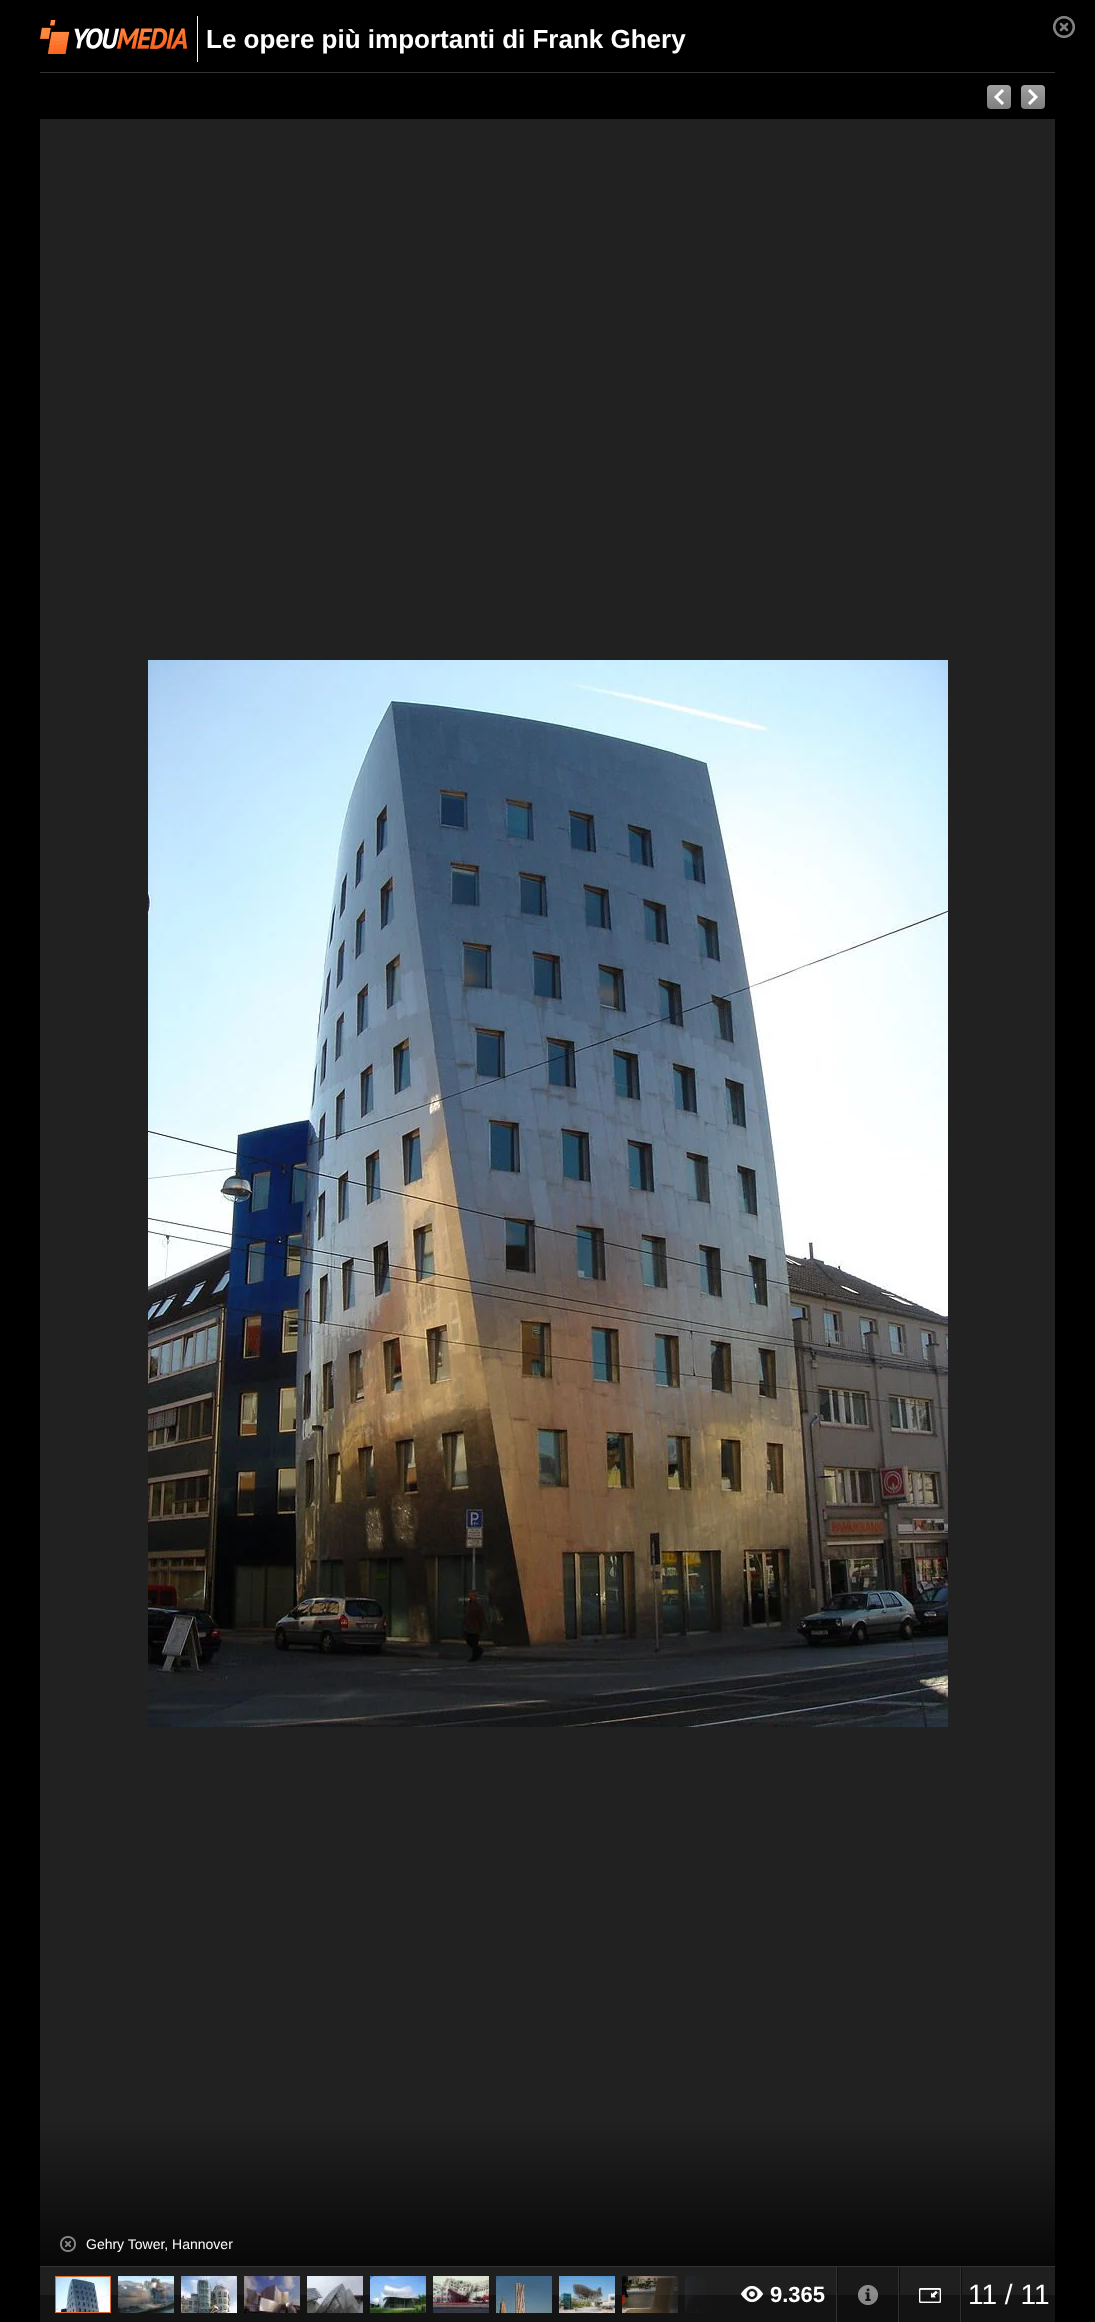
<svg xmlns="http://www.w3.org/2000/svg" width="1095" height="2322">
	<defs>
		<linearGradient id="g1" gradientUnits="userSpaceOnUse" x1="999" y1="85" x2="999" y2="109"><stop offset="0" stop-color="#A1A1A1" /><stop offset="1" stop-color="#7E7E7E" /></linearGradient>
		<linearGradient id="g2" gradientUnits="userSpaceOnUse" x1="1033" y1="85" x2="1033" y2="109"><stop offset="0" stop-color="#A1A1A1" /><stop offset="1" stop-color="#7E7E7E" /></linearGradient>
		<linearGradient id="g3" gradientUnits="userSpaceOnUse" x1="548" y1="2117" x2="548" y2="2267"><stop offset="0" stop-color="#212121" /><stop offset="1" stop-color="#070707" /></linearGradient>
	</defs>
	<rect width="100%" height="100%" fill="#000000" />
	<rect x="40" y="72" width="1015" height="1" fill="#333333" />
	<image x="40" y="20" width="147" height="34" href="assets/img1.png" />
	<rect x="197" y="16" width="1" height="46" fill="#F7F7F5" />
	<text x="206" y="48" font-family="Liberation Sans" font-size="26" font-weight="700" fill="#FFFFFF">Le opere più importanti di Frank Ghery</text>
	<image x="1053" y="16" width="22" height="22" href="assets/img2.png" />
	<rect x="987" y="85" width="24" height="24" rx="4" fill="url(#g1)" />
	<image x="994" y="89" width="10" height="16" href="assets/img3.png" />
	<rect x="1021" y="85" width="24" height="24" rx="4" fill="url(#g2)" />
	<image x="1028" y="89" width="10" height="16" href="assets/img4.png" />
	<rect x="40" y="119" width="1015" height="1998" fill="#212121" />
	<image x="148" y="660" width="800" height="1067" href="assets/img5.png" />
	<rect x="40" y="2117" width="1015" height="149" fill="url(#g3)" />
	<image x="60" y="2236" width="16" height="16" href="assets/img6.png" />
	<text x="86" y="2249" font-family="Liberation Sans" font-size="14" fill="#FFFFFF">Gehry Tower, Hannover</text>
	<rect x="40" y="2295" width="1015" height="27" fill="#131313" />
	<rect x="40" y="2267" width="1015" height="28" fill="#1F1F1F" />
	<rect x="40" y="2266" width="1015" height="1" fill="#313131" />
	<rect x="55.5" y="2276.5" width="55" height="36" fill="none" stroke="#DA6D31" />
	<image x="56" y="2277" width="54" height="35" href="assets/img7.png" />
	<image x="118" y="2276" width="56" height="37" href="assets/img8.png" />
	<image x="181" y="2276" width="56" height="37" href="assets/img9.png" />
	<image x="244" y="2276" width="56" height="37" href="assets/img10.png" />
	<image x="307" y="2276" width="56" height="37" href="assets/img11.png" />
	<image x="370" y="2276" width="56" height="37" href="assets/img12.png" />
	<image x="433" y="2276" width="56" height="37" href="assets/img13.png" />
	<image x="496" y="2276" width="56" height="37" href="assets/img14.png" />
	<image x="559" y="2276" width="56" height="37" href="assets/img15.png" />
	<image x="622" y="2276" width="56" height="37" href="assets/img16.png" />
	<image x="685" y="2276" width="22" height="37" href="assets/img17.png" />
	<rect x="838" y="2295" width="60" height="27" fill="#0F0F0F" />
	<rect x="838" y="2267" width="60" height="28" fill="#191919" />
	<image x="632" y="2276" width="98" height="37" href="assets/img18.png" />
	<rect x="836" y="2267" width="1" height="55" fill="#313131" />
	<image x="741" y="2286" width="22" height="16" href="assets/img19.png" />
	<text x="770" y="2302" font-family="Liberation Sans" font-size="22" font-weight="700" fill="#FFFFFF">9.365</text>
	<rect x="898" y="2267" width="1" height="55" fill="#313131" />
	<rect x="837" y="2267" width="1" height="55" fill="#0F0F0F" />
	<image x="858" y="2285" width="20" height="20" href="assets/img20.png" />
	<rect x="960" y="2267" width="1" height="55" fill="#313131" />
	<rect x="899" y="2267" width="1" height="55" fill="#0F0F0F" />
	<image x="919" y="2288" width="22" height="15" href="assets/img21.png" />
	<rect x="961" y="2267" width="1" height="55" fill="#0F0F0F" />
	<text x="968" y="2304" font-family="Liberation Sans" font-size="28" fill="#FFFFFF">11 / 11</text>
</svg>
